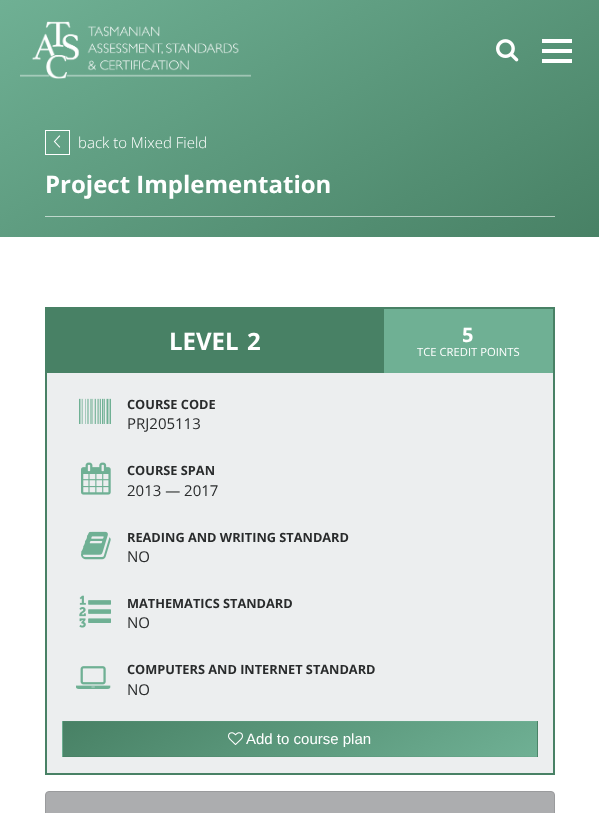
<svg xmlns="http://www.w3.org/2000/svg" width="599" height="813">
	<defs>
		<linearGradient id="g1" gradientUnits="userSpaceOnUse" x1="173" y1="-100" x2="426" y2="337"><stop offset="0" stop-color="#6FB094" /><stop offset="1" stop-color="#488165" /></linearGradient>
		<linearGradient id="g2" gradientUnits="userSpaceOnUse" x1="173" y1="-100" x2="426" y2="337"><stop offset="0" stop-color="#C5DFD4" /><stop offset="1" stop-color="#B6CDC1" /></linearGradient>
		<linearGradient id="g3" gradientUnits="userSpaceOnUse" x1="-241" y1="590" x2="-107" y2="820"><stop offset="0" stop-color="#488165" /><stop offset="1" stop-color="#6FB094" /></linearGradient>
		<linearGradient id="g4" gradientUnits="userSpaceOnUse" x1="233" y1="590" x2="367" y2="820"><stop offset="0" stop-color="#488165" /><stop offset="1" stop-color="#6FB094" /></linearGradient>
		<linearGradient id="g5" gradientUnits="userSpaceOnUse" x1="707" y1="590" x2="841" y2="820"><stop offset="0" stop-color="#488165" /><stop offset="1" stop-color="#6FB094" /></linearGradient>
		<linearGradient id="g6" gradientUnits="userSpaceOnUse" x1="-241" y1="624" x2="-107" y2="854"><stop offset="0" stop-color="#488165" /><stop offset="1" stop-color="#6FB094" /></linearGradient>
		<linearGradient id="g7" gradientUnits="userSpaceOnUse" x1="233" y1="624" x2="367" y2="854"><stop offset="0" stop-color="#488165" /><stop offset="1" stop-color="#6FB094" /></linearGradient>
		<linearGradient id="g8" gradientUnits="userSpaceOnUse" x1="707" y1="624" x2="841" y2="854"><stop offset="0" stop-color="#488165" /><stop offset="1" stop-color="#6FB094" /></linearGradient>
		<linearGradient id="g9" gradientUnits="userSpaceOnUse" x1="-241" y1="658" x2="-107" y2="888"><stop offset="0" stop-color="#488165" /><stop offset="1" stop-color="#6FB094" /></linearGradient>
		<linearGradient id="g10" gradientUnits="userSpaceOnUse" x1="233" y1="658" x2="367" y2="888"><stop offset="0" stop-color="#488165" /><stop offset="1" stop-color="#6FB094" /></linearGradient>
		<linearGradient id="g11" gradientUnits="userSpaceOnUse" x1="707" y1="658" x2="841" y2="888"><stop offset="0" stop-color="#488165" /><stop offset="1" stop-color="#6FB094" /></linearGradient>
	</defs>
	<rect width="100%" height="100%" fill="#FFFFFF" />
	<rect x="0" y="0" width="599" height="237" fill="url(#g1)" />
	<rect x="45" y="216" width="510" height="1" fill="url(#g2)" />
	<image x="20" y="21" width="231" height="58" href="assets/img1.png" />
	<image x="496" y="39" width="23" height="23" href="assets/img2.png" />
	<rect x="542" y="49" width="30" height="4" fill="#FFFFFF" />
	<rect x="542" y="39" width="30" height="4" fill="#FFFFFF" />
	<rect x="542" y="59" width="30" height="4" fill="#FFFFFF" />
	<rect x="45.5" y="130.5" width="24" height="24" fill="none" stroke="#FFFFFF" />
	<path d="M59.5 147L54.5 141.5L59.5 136" fill="none" stroke="#FFFFFF" stroke-width="1.1" stroke-linecap="square" />
	<text x="78" y="148" font-family="Open Sans" font-size="15" font-weight="300" fill="#FFFFFF">back to Mixed Field</text>
	<text x="45" y="193" font-family="Open Sans" font-size="24" font-weight="700" fill="#FFFFFF">Project Implementation</text>
	<rect x="552" y="309" width="1" height="64" fill="#6FB094" />
	<rect x="47" y="373" width="506" height="400" fill="#ECEEEF" />
	<rect x="46" y="308" width="508" height="466" fill="none" stroke="#488165" stroke-width="2" />
	<rect x="47" y="309" width="337" height="64" fill="#488165" />
	<g font-family="Open Sans" font-size="24" font-weight="700" fill="#FFFFFF">
		<text x="169" y="350">LEVEL</text>
		<text x="247" y="350">2</text>
	</g>
	<rect x="384" y="309" width="168" height="64" fill="#6FB094" />
	<text x="462" y="342" font-family="Open Sans" font-size="20" font-weight="700" fill="#FFFFFF">5</text>
	<text x="417" y="356" font-family="Open Sans" font-size="11.25" fill="#FFFFFF">TCE CREDIT POINTS</text>
	<image x="79" y="398" width="32" height="26" href="assets/img3.png" />
	<text x="127" y="409" font-family="Open Sans" font-size="12.75" font-weight="700" fill="#292B2C">COURSE CODE</text>
	<text x="127" y="429" font-family="Open Sans" font-size="15" fill="#292B2C">PRJ205113</text>
	<image x="81" y="462" width="30" height="33" href="assets/img4.png" />
	<text x="127" y="475" font-family="Open Sans" font-size="12.75" font-weight="700" fill="#292B2C">COURSE SPAN</text>
	<text x="127" y="496" font-family="Open Sans" font-size="15" fill="#292B2C">2013 — 2017</text>
	<image x="81" y="531" width="30" height="29" href="assets/img5.png" />
	<text x="127" y="542" font-family="Open Sans" font-size="12.75" font-weight="700" fill="#292B2C">READING AND WRITING STANDARD</text>
	<text x="127" y="562" font-family="Open Sans" font-size="15" fill="#292B2C">NO</text>
	<image x="79" y="595" width="32" height="33" href="assets/img6.png" />
	<text x="127" y="608" font-family="Open Sans" font-size="12.75" font-weight="700" fill="#292B2C">MATHEMATICS STANDARD</text>
	<text x="127" y="628" font-family="Open Sans" font-size="15" fill="#292B2C">NO</text>
	<image x="76" y="666" width="35" height="23" href="assets/img7.png" />
	<text x="127" y="674" font-family="Open Sans" font-size="12.75" font-weight="700" fill="#292B2C">COMPUTERS AND INTERNET STANDARD</text>
	<text x="127" y="695" font-family="Open Sans" font-size="15" fill="#292B2C">NO</text>
	<rect x="62" y="721" width="1" height="1" fill="url(#g3)" />
	<rect x="63" y="721" width="474" height="1" fill="url(#g4)" />
	<rect x="537" y="721" width="1" height="1" fill="url(#g5)" />
	<rect x="62" y="722" width="1" height="34" fill="url(#g6)" />
	<rect x="63" y="722" width="474" height="34" fill="url(#g7)" />
	<rect x="537" y="722" width="1" height="34" fill="url(#g8)" />
	<rect x="62" y="756" width="1" height="1" fill="url(#g9)" />
	<rect x="63" y="756" width="474" height="1" fill="url(#g10)" />
	<rect x="537" y="756" width="1" height="1" fill="url(#g11)" />
	<image x="228" y="732" width="15" height="13" href="assets/img8.png" />
	<text x="246" y="744" font-family="Liberation Sans" font-size="15" fill="#FFFFFF">Add to course plan</text>
	<rect x="45.5" y="791.5" width="509" height="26" rx="3.5" fill="#ACADAF" stroke="#9A9B9D" />
</svg>
